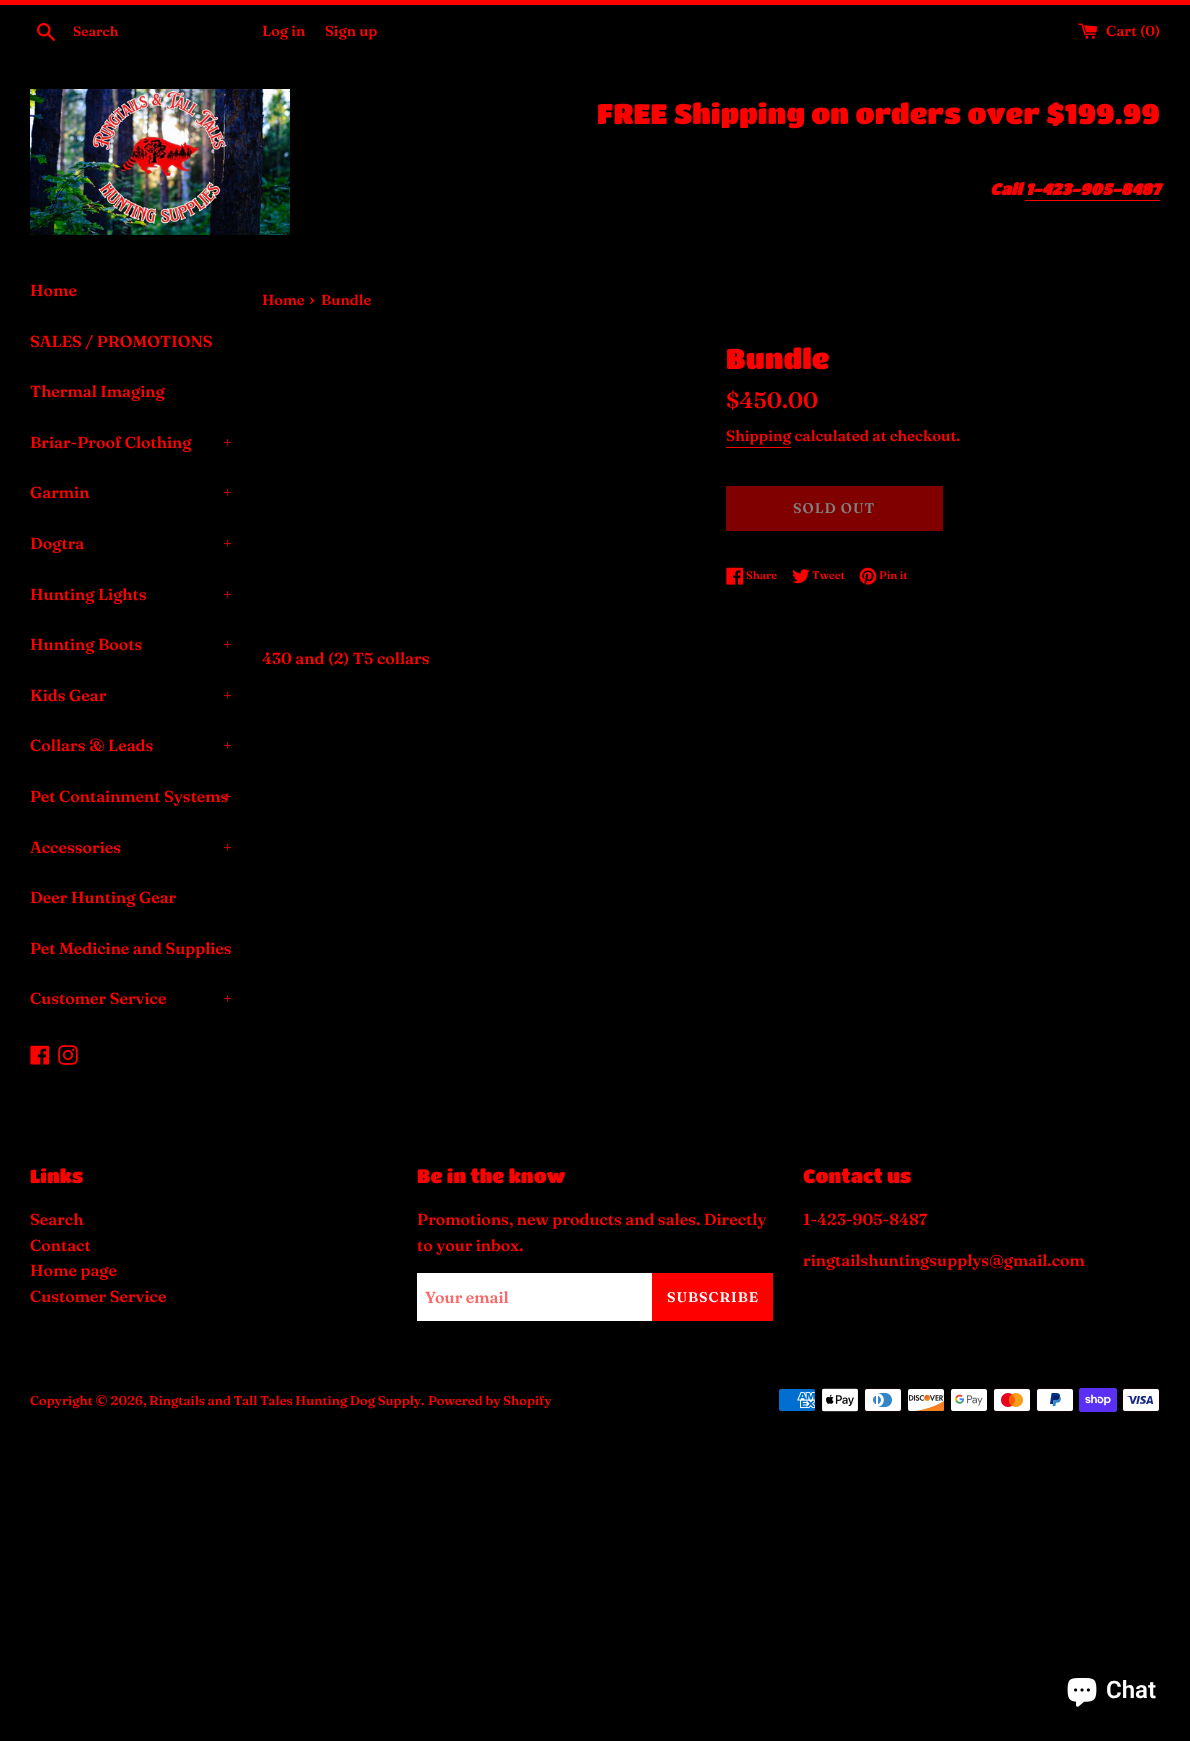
<svg xmlns="http://www.w3.org/2000/svg" width="1190" height="1741">
	<rect width="100%" height="100%" fill="#000000" />
	<rect x="0" y="0" width="1190" height="5" fill="#FF0000" />
	<image x="37" y="23" width="18" height="18" href="assets/img1.png" />
	<text x="73" y="36" font-family="Fraunces" font-size="13.5" font-weight="600" fill="#FF0000">Search</text>
	<g font-family="'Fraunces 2'" font-size="14.5" font-weight="600" fill="#FF0000">
		<text x="262" y="36">Log in</text>
		<text x="325" y="36">Sign up</text>
	</g>
	<image x="1078" y="23" width="20" height="16" href="assets/img2.png" />
	<text x="1106" y="36" font-family="'Fraunces 2'" font-size="14.5" font-weight="600" fill="#FF0000">Cart (0)</text>
	<image x="30" y="89" width="260" height="146" href="assets/img3.png" />
	<text x="597" y="124" font-family="Titan One" font-size="28" fill="#FF0000">FREE Shipping on orders over $199.99</text>
	<text x="990" y="195" font-family="Titan One" font-size="16" font-weight="700" font-style="italic" fill="#FF0000">Call 1-423-905-8487</text>
	<rect x="1025" y="200" width="135" height="1" fill="#FF0000" />
	<g font-family="'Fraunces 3'" font-size="16" font-weight="600" fill="#FF0000">
		<text x="30" y="296">Home</text>
		<text x="30" y="347">SALES / PROMOTIONS</text>
		<text x="30" y="397">Thermal Imaging</text>
		<text x="30" y="448">Briar-Proof Clothing</text>
	</g>
	<text x="223" y="448" font-family="'Fraunces 3'" font-size="16" font-weight="600" fill="#CC0000">+</text>
	<text x="30" y="498" font-family="'Fraunces 3'" font-size="16" font-weight="600" fill="#FF0000">Garmin</text>
	<text x="223" y="498" font-family="'Fraunces 3'" font-size="16" font-weight="600" fill="#CC0000">+</text>
	<text x="30" y="549" font-family="'Fraunces 3'" font-size="16" font-weight="600" fill="#FF0000">Dogtra</text>
	<text x="223" y="549" font-family="'Fraunces 3'" font-size="16" font-weight="600" fill="#CC0000">+</text>
	<text x="30" y="600" font-family="'Fraunces 3'" font-size="16" font-weight="600" fill="#FF0000">Hunting Lights</text>
	<text x="223" y="600" font-family="'Fraunces 3'" font-size="16" font-weight="600" fill="#CC0000">+</text>
	<text x="30" y="650" font-family="'Fraunces 3'" font-size="16" font-weight="600" fill="#FF0000">Hunting Boots</text>
	<text x="223" y="650" font-family="'Fraunces 3'" font-size="16" font-weight="600" fill="#CC0000">+</text>
	<text x="30" y="701" font-family="'Fraunces 3'" font-size="16" font-weight="600" fill="#FF0000">Kids Gear</text>
	<text x="223" y="701" font-family="'Fraunces 3'" font-size="16" font-weight="600" fill="#CC0000">+</text>
	<text x="30" y="751" font-family="'Fraunces 3'" font-size="16" font-weight="600" fill="#FF0000">Collars &amp; Leads</text>
	<text x="223" y="751" font-family="'Fraunces 3'" font-size="16" font-weight="600" fill="#CC0000">+</text>
	<text x="30" y="802" font-family="'Fraunces 3'" font-size="16" font-weight="600" fill="#FF0000">Pet Containment Systems</text>
	<text x="223" y="802" font-family="'Fraunces 3'" font-size="16" font-weight="600" fill="#D80000">+</text>
	<text x="30" y="853" font-family="'Fraunces 3'" font-size="16" font-weight="600" fill="#FF0000">Accessories</text>
	<text x="223" y="853" font-family="'Fraunces 3'" font-size="16" font-weight="600" fill="#CC0000">+</text>
	<g font-family="'Fraunces 3'" font-size="16" font-weight="600" fill="#FF0000">
		<text x="30" y="903">Deer Hunting Gear</text>
		<text x="30" y="954">Pet Medicine and Supplies</text>
		<text x="30" y="1004">Customer Service</text>
	</g>
	<text x="223" y="1004" font-family="'Fraunces 3'" font-size="16" font-weight="600" fill="#CC0000">+</text>
	<image x="30" y="1045" width="20" height="20" href="assets/img4.png" />
	<image x="58" y="1045" width="20" height="20" href="assets/img5.png" />
	<text x="262" y="305" font-family="'Fraunces 2'" font-size="14.5" font-weight="600" fill="#FF0000">Home</text>
	<text x="309" y="305" font-family="Fraunces" font-size="18" font-weight="600" fill="#FF0000">›</text>
	<text x="321" y="305" font-family="'Fraunces 2'" font-size="14.5" font-weight="600" fill="#FF0000">Bundle</text>
	<text x="726" y="369" font-family="Titan One" font-size="28" fill="#FF0000">Bundle</text>
	<text x="726" y="408" font-family="'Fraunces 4'" font-size="22.5" font-weight="600" fill="#FF0000">$450.00</text>
	<text x="726" y="441" font-family="'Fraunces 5'" font-size="15" font-weight="600" fill="#FF0000">Shipping calculated at checkout.</text>
	<rect x="726" y="447" width="65" height="1" fill="#FF0000" />
	<rect x="726" y="486" width="217" height="45" fill="#800000" />
	<text x="793" y="513" font-family="Fraunces" font-size="14" font-weight="600" letter-spacing="1" fill="#808080">SOLD OUT</text>
	<image x="726" y="567" width="18" height="18" href="assets/img6.png" />
	<text x="746" y="579" font-family="Fraunces" font-size="11" font-weight="600" fill="#FF0000">Share</text>
	<image x="792" y="569" width="18" height="15" href="assets/img7.png" />
	<text x="812" y="579" font-family="Fraunces" font-size="11" font-weight="600" fill="#FF0000">Tweet</text>
	<image x="859" y="567" width="18" height="18" href="assets/img8.png" />
	<text x="879" y="579" font-family="Fraunces" font-size="11" font-weight="600" fill="#FF0000">Pin it</text>
	<text x="262" y="664" font-family="'Fraunces 3'" font-size="16" font-weight="600" fill="#FF0000">430 and (2) T5 collars</text>
	<text x="30" y="1183" font-family="Titan One" font-size="19" fill="#FF0000">Links</text>
	<g font-family="'Fraunces 3'" font-size="16" font-weight="600" fill="#FF0000">
		<text x="30" y="1225">Search</text>
		<text x="30" y="1251">Contact</text>
		<text x="30" y="1276">Home page</text>
		<text x="30" y="1302">Customer Service</text>
	</g>
	<text x="417" y="1183" font-family="Titan One" font-size="19" fill="#FF0000">Be in the know</text>
	<g font-family="'Fraunces 3'" font-size="16" font-weight="600" fill="#FF0000">
		<text x="417" y="1225">Promotions, new products and sales. Directly</text>
		<text x="417" y="1251">to your inbox.</text>
	</g>
	<rect x="417" y="1273" width="235" height="48" fill="#FFFFFF" />
	<text x="425" y="1303" font-family="'Fraunces 3'" font-size="16" font-weight="600" fill="#FF6666">Your email</text>
	<rect x="652" y="1273" width="121" height="48" fill="#FF0000" />
	<text x="667" y="1302" font-family="Fraunces" font-size="14" font-weight="600" letter-spacing="1" fill="#FFFFFF">SUBSCRIBE</text>
	<text x="803" y="1183" font-family="Titan One" font-size="19" fill="#FF0000">Contact us</text>
	<g font-family="'Fraunces 3'" font-size="16" font-weight="600" fill="#FF0000">
		<text x="803" y="1225">1-423-905-8487</text>
		<text x="803" y="1266">ringtailshuntingsupplys@gmail.com</text>
	</g>
	<g font-family="Fraunces" font-size="12.8" font-weight="600" fill="#FF0000">
		<text x="30" y="1405">Copyright © 2026,</text>
		<text x="149" y="1405" word-spacing="-0.25">Ringtails and Tall Tales Hunting Dog Supply</text>
		<text x="421" y="1405">.</text>
		<text x="428" y="1405">Powered by Shopify</text>
	</g>
	<image x="779" y="1389" width="36" height="22" href="assets/img9.png" />
	<image x="822" y="1388" width="36" height="24" href="assets/img10.png" />
	<image x="864" y="1388" width="38" height="24" href="assets/img11.png" />
	<image x="908" y="1389" width="37" height="22" href="assets/img12.png" />
	<image x="951" y="1389" width="36" height="22" href="assets/img13.png" />
	<image x="993" y="1388" width="38" height="24" href="assets/img14.png" />
	<image x="1036" y="1388" width="38" height="24" href="assets/img15.png" />
	<image x="1079" y="1388" width="38" height="24" href="assets/img16.png" />
	<image x="1122" y="1388" width="38" height="24" href="assets/img17.png" />
	<image x="1067" y="1678" width="30" height="29" href="assets/img18.png" />
	<text x="1106" y="1698" font-family="Roboto" font-size="24" font-weight="600" fill="#FFFFFF">Chat</text>
</svg>
